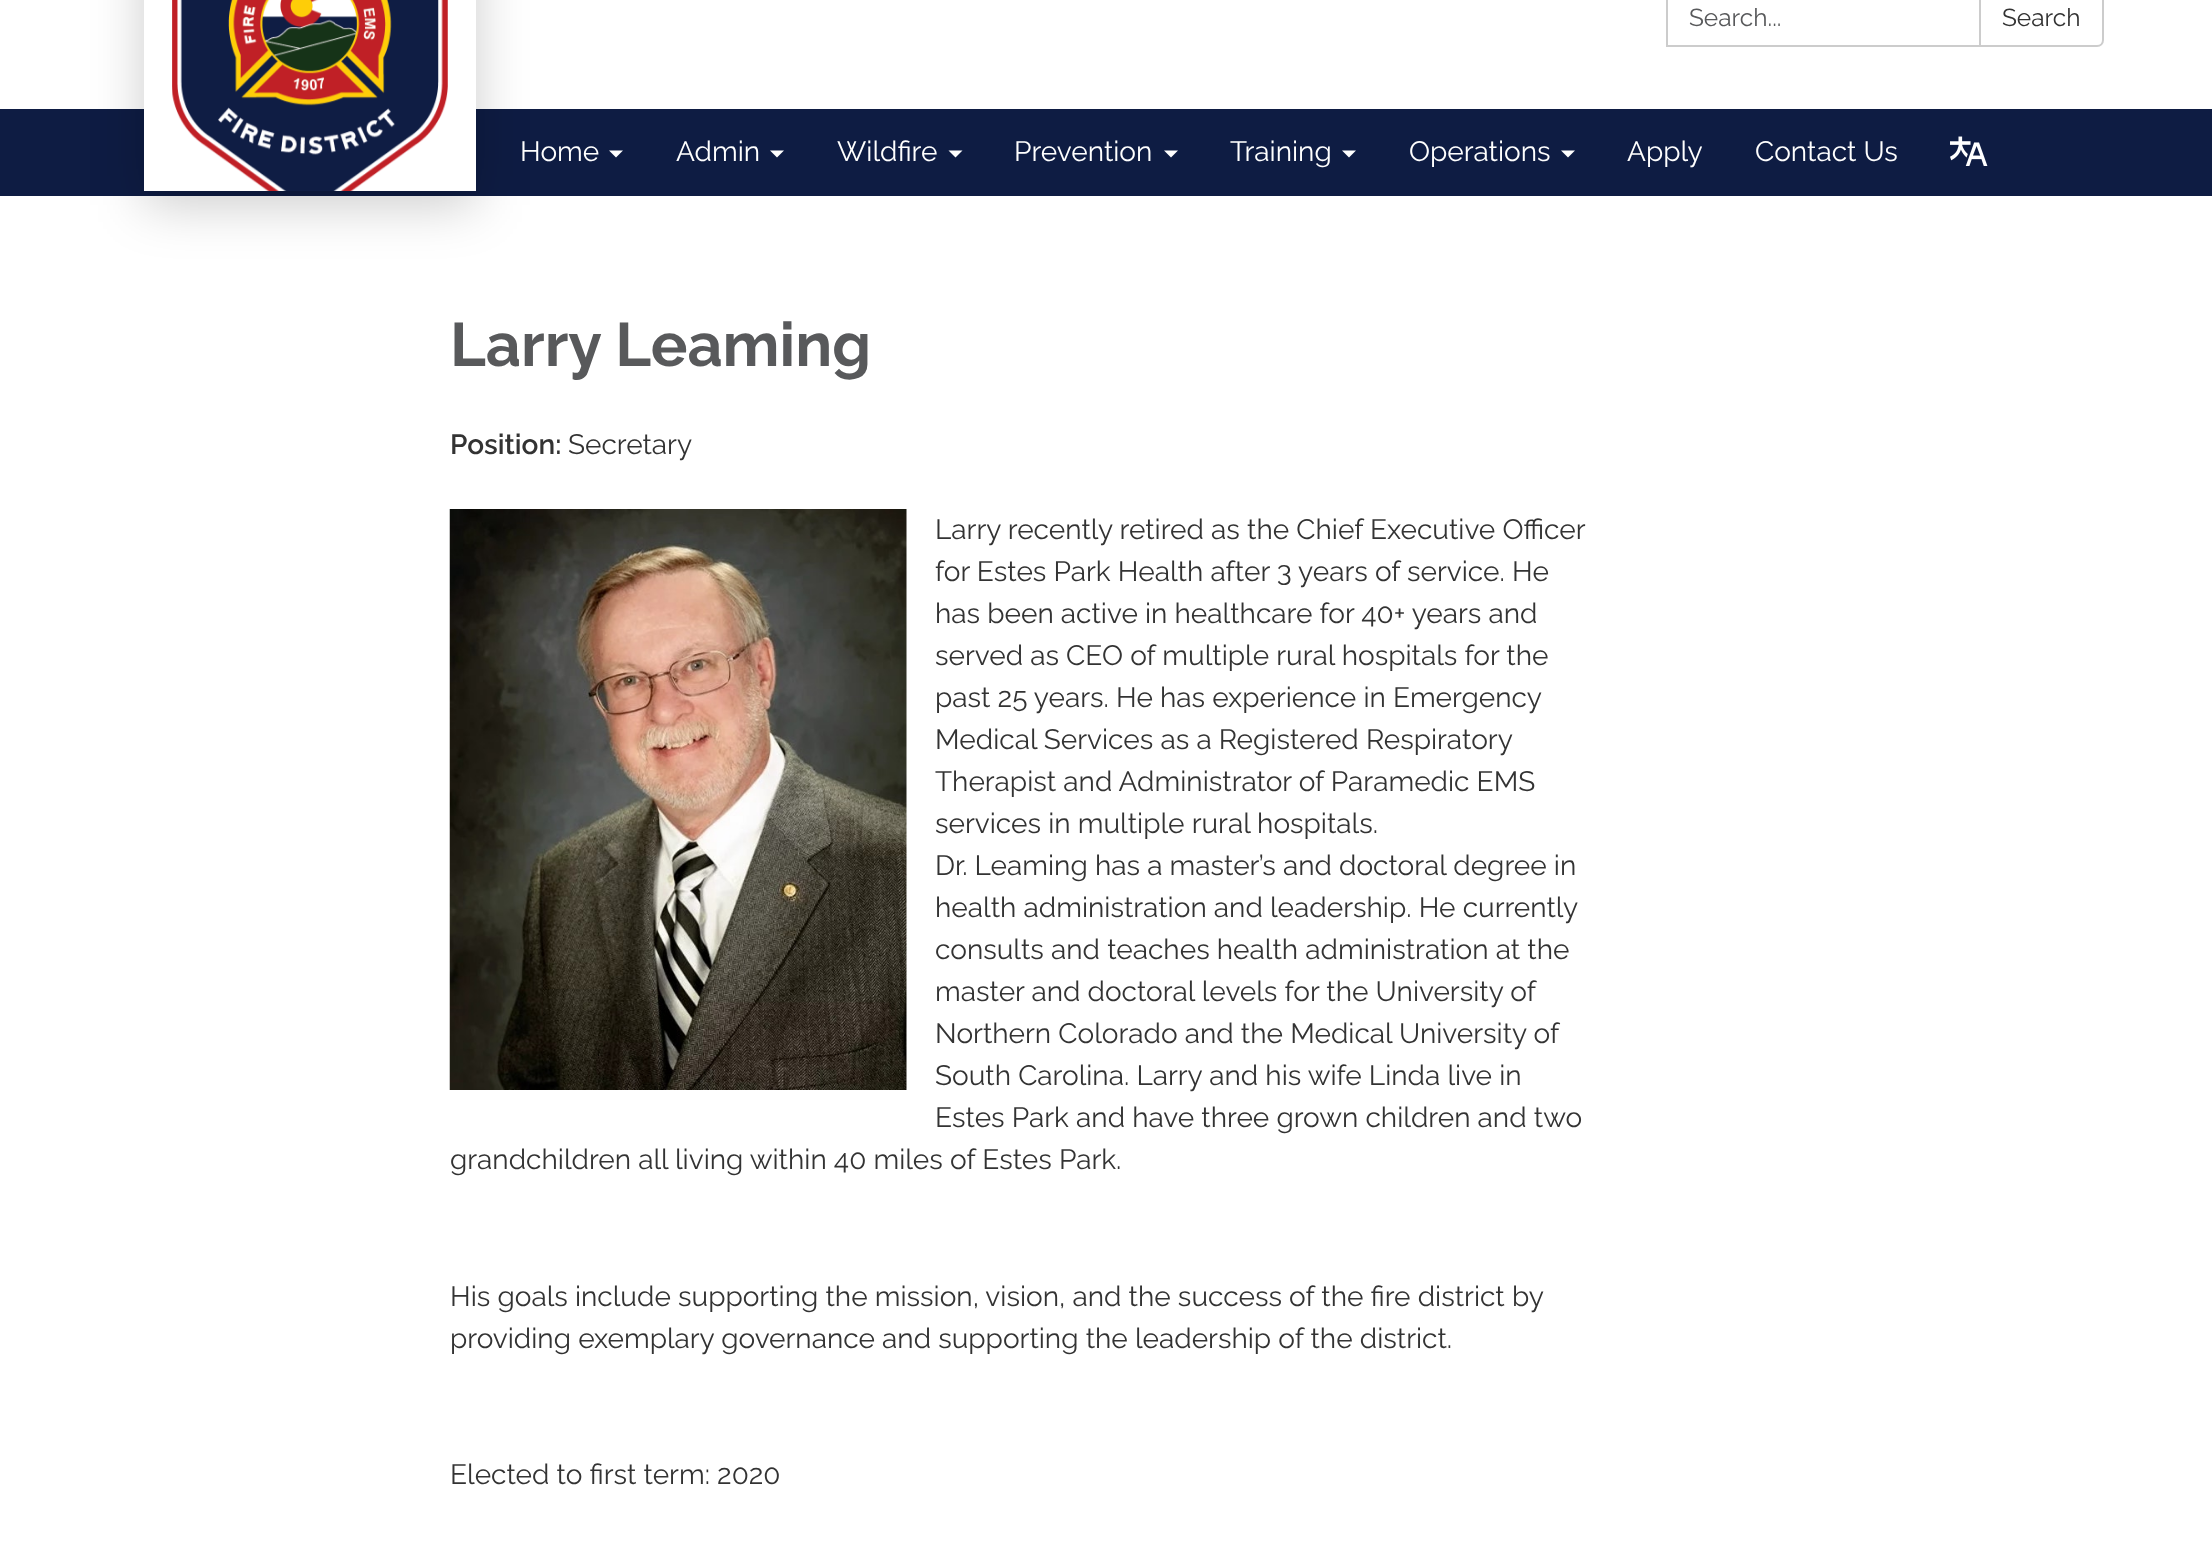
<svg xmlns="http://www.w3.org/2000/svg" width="2212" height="1546">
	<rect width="100%" height="100%" fill="#0E1C43" />
	<rect x="0" y="0" width="2212" height="109" fill="#FFFFFF" />
	<rect x="0" y="196" width="2212" height="1350" fill="#FFFFFF" />
	<rect x="144" y="-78" width="332" height="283" fill="#000000" fill-opacity="0.2" filter="blur(26px)" />
	<rect x="144" y="0" width="332" height="191" fill="#FFFFFF" />
	<image x="172" y="0" width="276" height="191" href="assets/img1.png" />
	<rect x="1667" y="-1" width="313" height="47" fill="none" stroke="#CCCCCC" stroke-width="2" />
	<text x="1689" y="26" font-family="Raleway" font-size="24.5" fill="#58595B">Search...</text>
	<path d="M1980-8H2097C2100.5-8 2103-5.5 2103-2V40C2103 43.5 2100.5 46 2097 46H1980Z" fill="#FFFFFF" stroke="#CCCCCC" stroke-width="2" />
	<text x="2002" y="26" font-family="Raleway" font-size="24.5" fill="#333333">Search</text>
	<text x="520" y="161" font-family="Raleway" font-size="28" fill="#FFFFFF">Home</text>
	<path d="M609 150.5H623L616 157.5Z" fill="#FFFFFF" />
	<text x="676" y="161" font-family="Raleway" font-size="28" fill="#FFFFFF">Admin</text>
	<path d="M770 150.5H784L777 157.5Z" fill="#FFFFFF" />
	<text x="837" y="161" font-family="Raleway" font-size="28" fill="#FFFFFF">Wildfire</text>
	<path d="M948.5 150.5H962.5L955.5 157.5Z" fill="#FFFFFF" />
	<text x="1014" y="161" font-family="Raleway" font-size="28" fill="#FFFFFF">Prevention</text>
	<path d="M1164 150.5H1178L1171 157.5Z" fill="#FFFFFF" />
	<text x="1230" y="161" font-family="Raleway" font-size="28" fill="#FFFFFF">Training</text>
	<path d="M1342 150.5H1356L1349 157.5Z" fill="#FFFFFF" />
	<text x="1409" y="161" font-family="Raleway" font-size="28" fill="#FFFFFF">Operations</text>
	<path d="M1561 150.5H1575L1568 157.5Z" fill="#FFFFFF" />
	<g font-family="Raleway" font-size="28" fill="#FFFFFF">
		<text x="1627" y="161">Apply</text>
		<text x="1755" y="161">Contact Us</text>
	</g>
	<image x="1950" y="136" width="38" height="30" href="assets/img2.png" />
	<text x="450" y="366" font-family="Raleway" font-size="61.25" font-weight="700" fill="#58595B">Larry Leaming</text>
	<text x="450" y="454" font-family="Raleway" font-size="28" font-weight="600" fill="#333333">Position:</text>
	<text x="568" y="454" font-family="Raleway" font-size="28" fill="#333333">Secretary</text>
	<image x="449" y="509" width="458" height="581" href="assets/img3.png" />
	<g font-family="Raleway" font-size="28" fill="#333333">
		<text x="935" y="539">Larry recently retired as the Chief Executive Officer</text>
		<text x="935" y="581">for Estes Park Health after 3 years of service. He</text>
		<text x="935" y="623">has been active in healthcare for 40+ years and</text>
		<text x="935" y="665">served as CEO of multiple rural hospitals for the</text>
		<text x="935" y="707">past 25 years. He has experience in Emergency</text>
		<text x="935" y="749">Medical Services as a Registered Respiratory</text>
		<text x="935" y="791">Therapist and Administrator of Paramedic EMS</text>
		<text x="935" y="833">services in multiple rural hospitals.</text>
		<text x="935" y="875">Dr. Leaming has a master’s and doctoral degree in</text>
		<text x="935" y="917">health administration and leadership. He currently</text>
		<text x="935" y="959">consults and teaches health administration at the</text>
		<text x="935" y="1001">master and doctoral levels for the University of</text>
		<text x="935" y="1043">Northern Colorado and the Medical University of</text>
		<text x="935" y="1085">South Carolina. Larry and his wife Linda live in</text>
		<text x="935" y="1127">Estes Park and have three grown children and two</text>
		<text x="450" y="1169">grandchildren all living within 40 miles of Estes Park.</text>
		<text x="450" y="1306">His goals include supporting the mission, vision, and the success of the fire district by</text>
		<text x="450" y="1348">providing exemplary governance and supporting the leadership of the district.</text>
		<text x="450" y="1484">Elected to first term: 2020</text>
	</g>
</svg>
